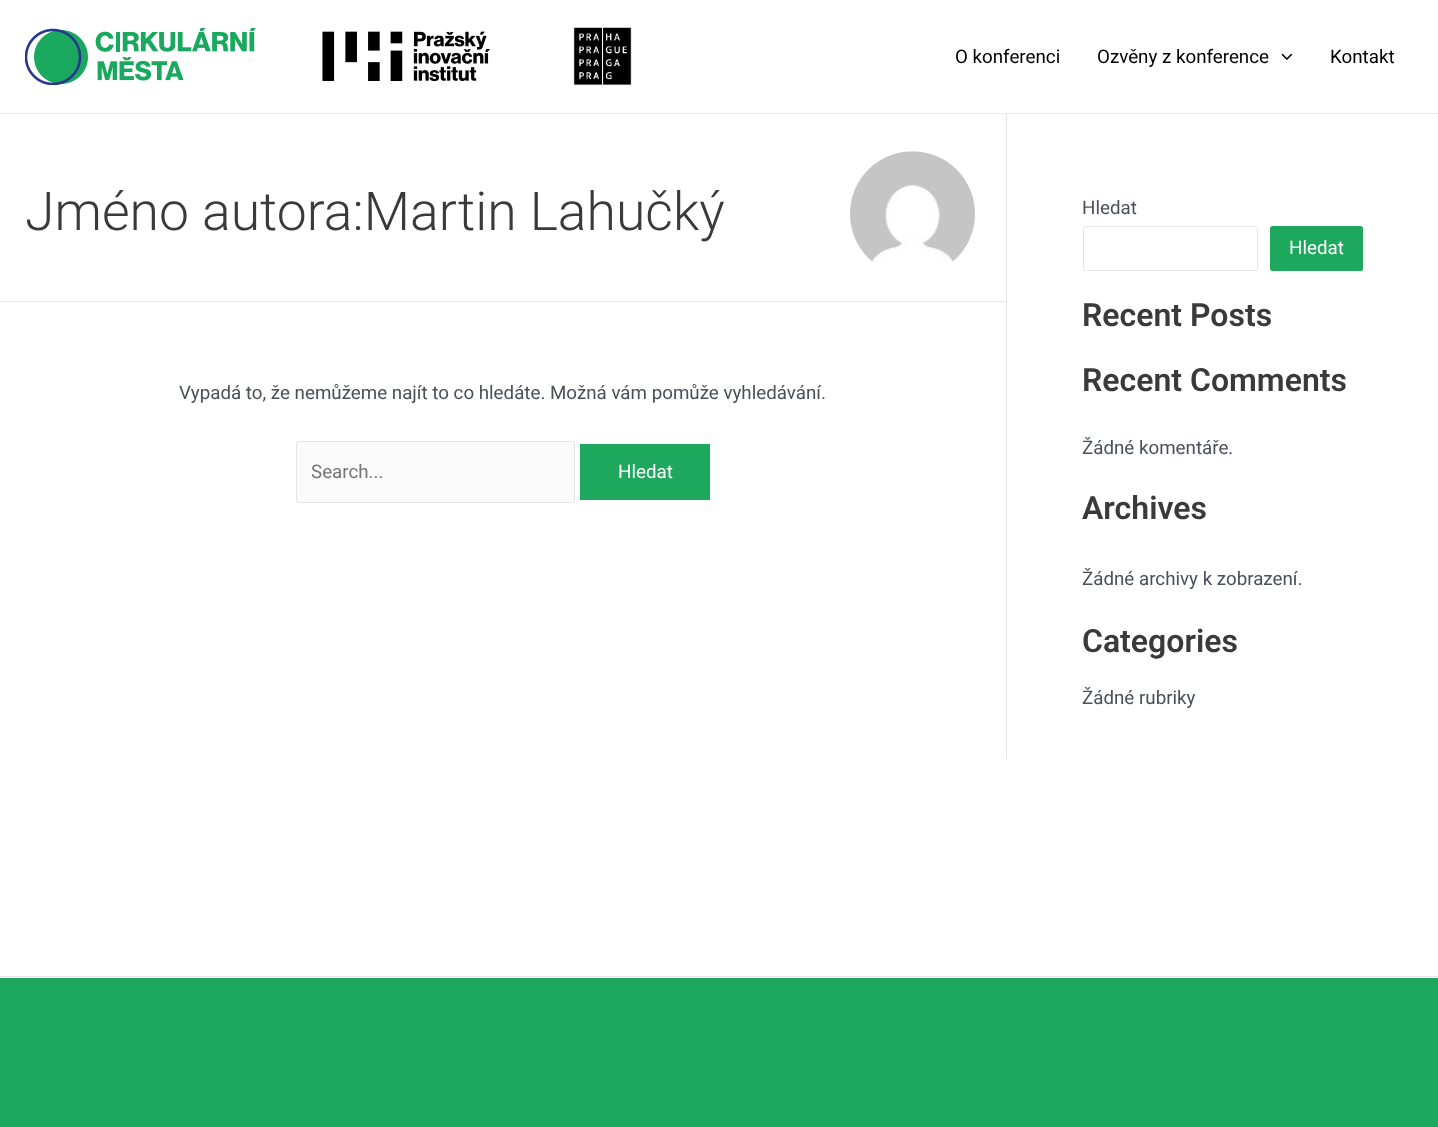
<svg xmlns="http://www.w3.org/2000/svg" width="1438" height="1127">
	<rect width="100%" height="100%" fill="#FFFFFF" />
	<rect x="0" y="113" width="1438" height="1" fill="#EAEAEA" />
	<image x="25" y="28" width="231" height="57" href="assets/img1.png" />
	<image x="322" y="31" width="168" height="51" href="assets/img2.png" />
	<image x="573" y="27" width="59" height="58" href="assets/img3.png" />
	<g font-family="Roboto" font-size="18.75" fill="#000000">
		<text x="955" y="63">O konferenci</text>
		<text x="1097" y="63">Ozvěny z konference</text>
	</g>
	<image x="1281" y="53" width="12" height="7" href="assets/img4.png" />
	<text x="1330" y="63" font-family="Roboto" font-size="18.75" fill="#000000">Kontakt</text>
	<rect x="1006" y="114" width="1" height="645" fill="#E5E5E5" />
	<rect x="0" y="301" width="1006" height="1" fill="#E5E5E5" />
	<text x="25" y="230" font-family="Roboto" font-size="53.5" font-weight="300" fill="#3A3A3A">Jméno autora:Martin Lahučký</text>
	<image x="850" y="151" width="125" height="111" href="assets/img5.png" />
	<text x="179" y="399" font-family="Roboto" font-size="18.75" fill="#4B4F58">Vypadá to, že nemůžeme najít to co hledáte. Možná vám pomůže vyhledávání.</text>
	<rect x="296.5" y="441.5" width="278" height="61" rx="2" fill="#FAFAFA" stroke="#E5E5E5" />
	<text x="311" y="478" font-family="Roboto" font-size="18.75" fill="#757575">Search...</text>
	<rect x="580" y="444" width="130" height="56" fill="#1EA85E" />
	<text x="618" y="478" font-family="Roboto" font-size="18.75" fill="#FFFFFF">Hledat</text>
	<text x="1082" y="214" font-family="Roboto" font-size="18.75" fill="#4B4F58">Hledat</text>
	<rect x="1083.5" y="226.5" width="174" height="44" rx="2" fill="none" stroke="#E5E5E5" />
	<rect x="1270" y="226" width="93" height="45" rx="2.5" fill="#1EA85E" />
	<text x="1289" y="254" font-family="Roboto" font-size="18.75" fill="#FFFFFF">Hledat</text>
	<g font-family="Roboto" font-size="32" font-weight="600" fill="#3A3A3A">
		<text x="1082" y="326">Recent Posts</text>
		<text x="1082" y="391">Recent Comments</text>
	</g>
	<text x="1082" y="454" font-family="Roboto" font-size="18.75" fill="#4B4F58">Žádné komentáře.</text>
	<text x="1082" y="519" font-family="Roboto" font-size="32" font-weight="600" fill="#3A3A3A">Archives</text>
	<text x="1082" y="585" font-family="Roboto" font-size="18.75" fill="#4B4F58">Žádné archivy k zobrazení.</text>
	<text x="1082" y="652" font-family="Roboto" font-size="32" font-weight="600" fill="#3A3A3A">Categories</text>
	<text x="1082" y="704" font-family="Roboto" font-size="18.75" fill="#4B4F58">Žádné rubriky</text>
	<rect x="0" y="978" width="1438" height="149" fill="#1EA85E" />
	<rect x="0" y="976" width="1438" height="1" fill="#E5E5E5" />
</svg>
